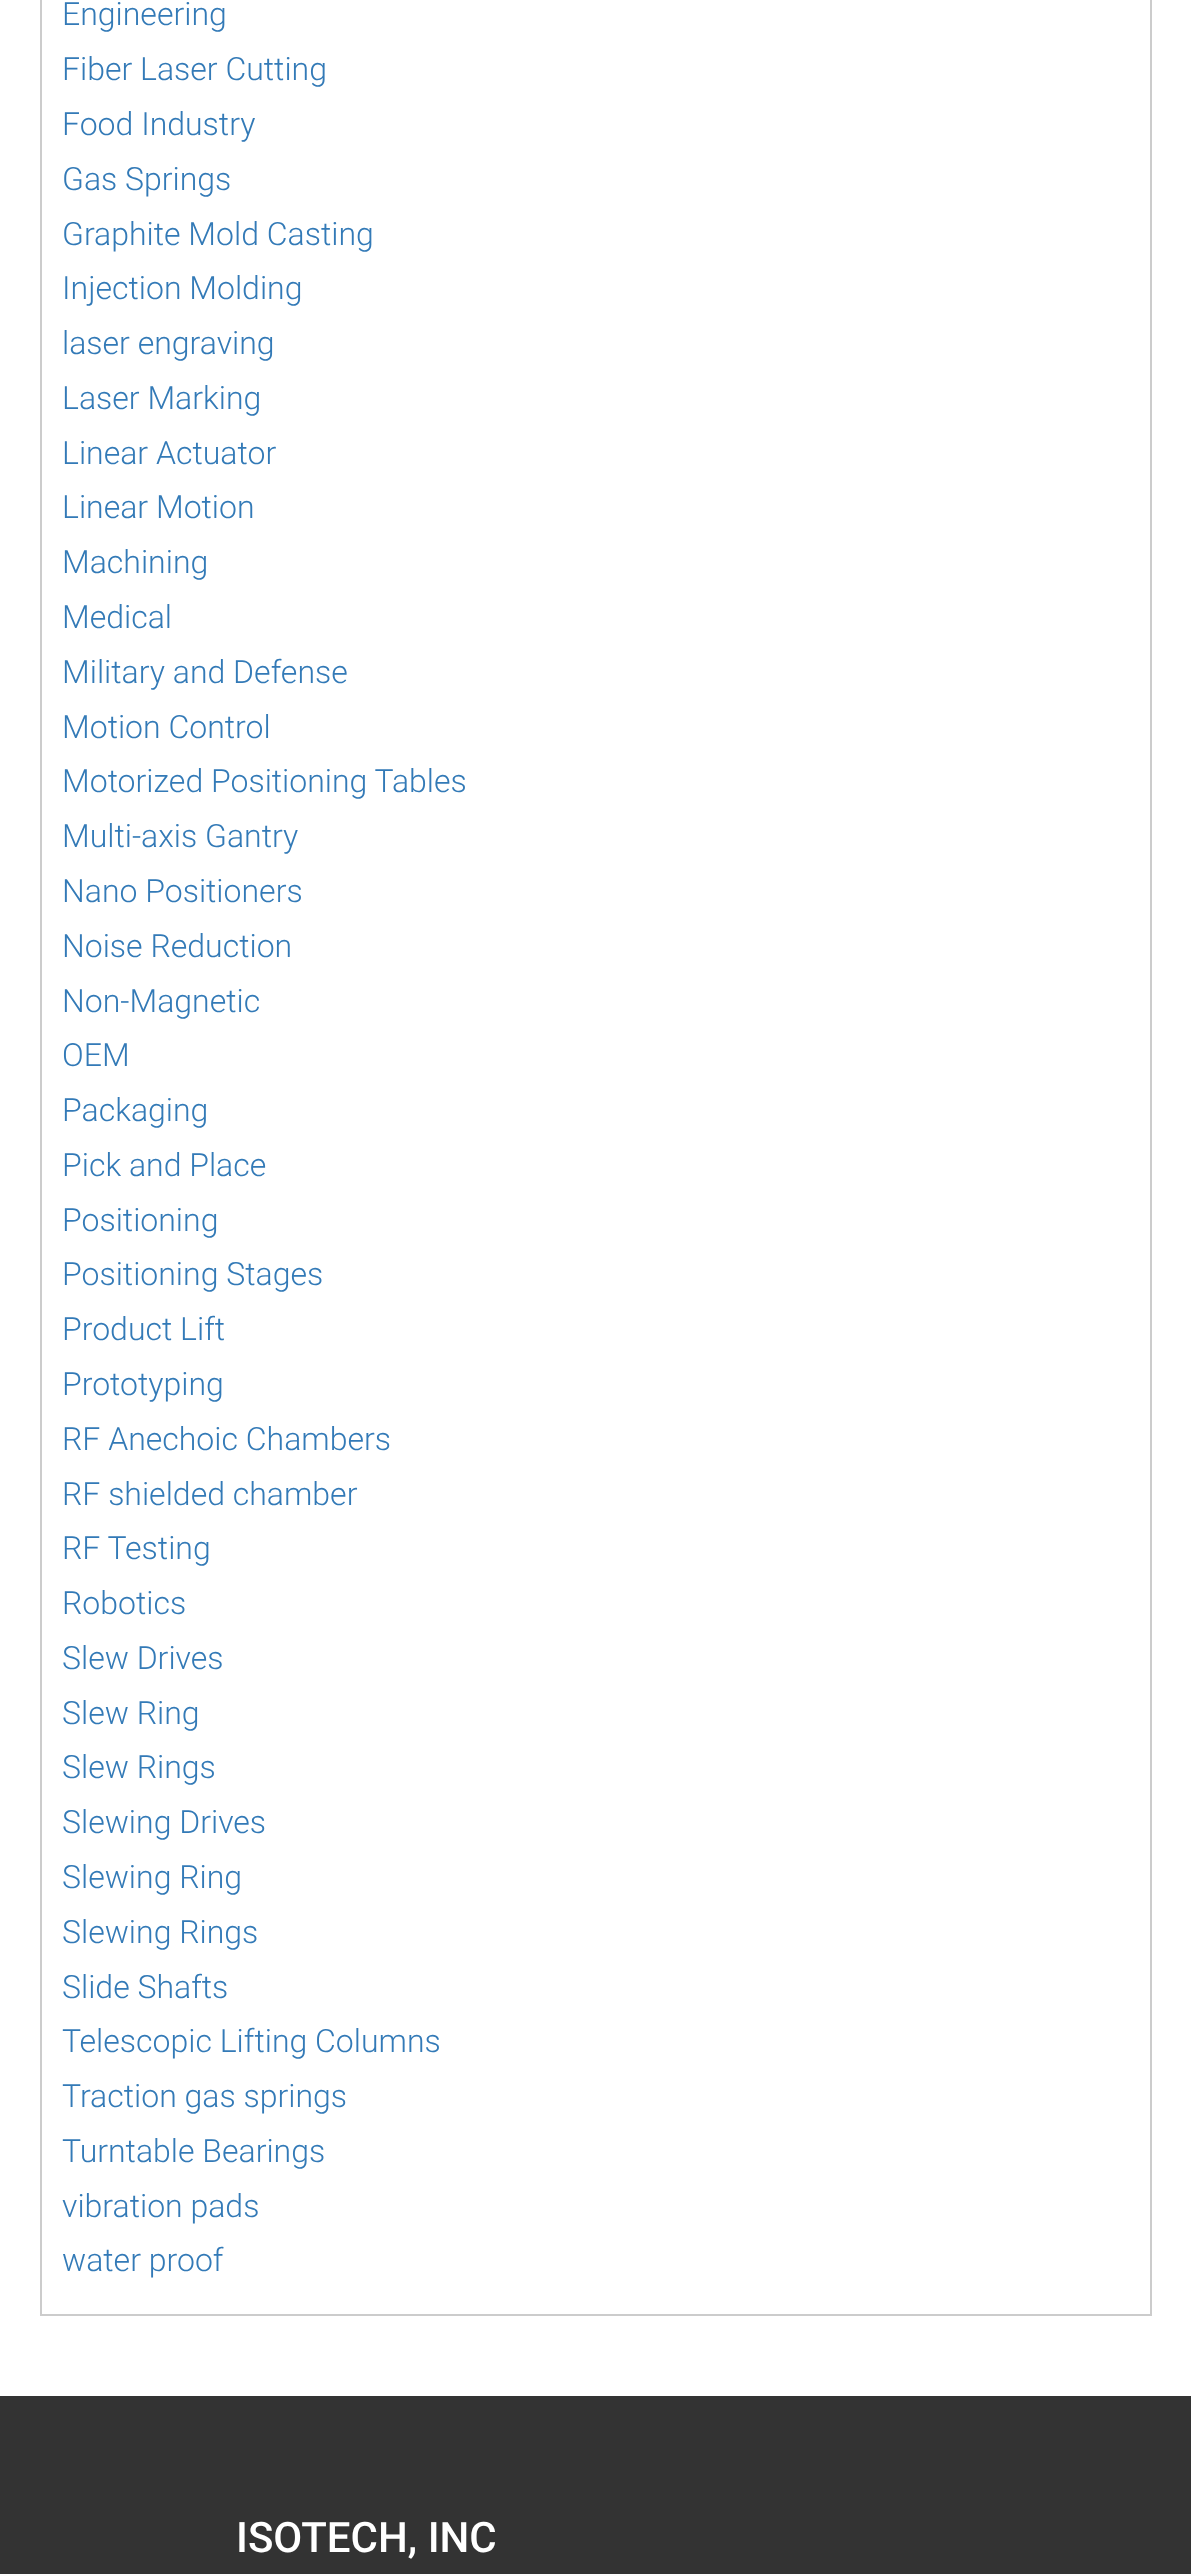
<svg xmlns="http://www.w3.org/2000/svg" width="1191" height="2574">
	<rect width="100%" height="100%" fill="#FFFFFF" />
	<rect x="1150" y="0" width="2" height="2316" fill="#CCCCCC" />
	<rect x="40" y="2314" width="1112" height="2" fill="#CCCCCC" />
	<rect x="40" y="0" width="2" height="2316" fill="#CCCCCC" />
	<g font-family="Roboto" font-size="32" font-weight="300" fill="#337AB7">
		<text x="62" y="25">Engineering</text>
		<text x="62" y="80">Fiber Laser Cutting</text>
		<text x="62" y="135">Food Industry</text>
		<text x="62" y="190">Gas Springs</text>
		<text x="62" y="245">Graphite Mold Casting</text>
		<text x="62" y="299">Injection Molding</text>
		<text x="62" y="354">laser engraving</text>
		<text x="62" y="409">Laser Marking</text>
		<text x="62" y="464">Linear Actuator</text>
		<text x="62" y="518">Linear Motion</text>
		<text x="62" y="573">Machining</text>
		<text x="62" y="628">Medical</text>
		<text x="62" y="683">Military and Defense</text>
		<text x="62" y="738">Motion Control</text>
		<text x="62" y="792">Motorized Positioning Tables</text>
		<text x="62" y="847">Multi-axis Gantry</text>
		<text x="62" y="902">Nano Positioners</text>
		<text x="62" y="957">Noise Reduction</text>
		<text x="62" y="1012">Non-Magnetic</text>
		<text x="62" y="1066">OEM</text>
		<text x="62" y="1121">Packaging</text>
		<text x="62" y="1176">Pick and Place</text>
		<text x="62" y="1231">Positioning</text>
		<text x="62" y="1285">Positioning Stages</text>
		<text x="62" y="1340">Product Lift</text>
		<text x="62" y="1395">Prototyping</text>
		<text x="62" y="1450">RF Anechoic Chambers</text>
		<text x="62" y="1505">RF shielded chamber</text>
		<text x="62" y="1559">RF Testing</text>
		<text x="62" y="1614">Robotics</text>
		<text x="62" y="1669">Slew Drives</text>
		<text x="62" y="1724">Slew Ring</text>
		<text x="62" y="1778">Slew Rings</text>
		<text x="62" y="1833">Slewing Drives</text>
		<text x="62" y="1888">Slewing Ring</text>
		<text x="62" y="1943">Slewing Rings</text>
		<text x="62" y="1998">Slide Shafts</text>
		<text x="62" y="2052">Telescopic Lifting Columns</text>
		<text x="62" y="2107">Traction gas springs</text>
		<text x="62" y="2162">Turntable Bearings</text>
		<text x="62" y="2217">vibration pads</text>
		<text x="62" y="2271">water proof</text>
	</g>
	<rect x="0" y="2396" width="1191" height="178" fill="#333333" />
	<text x="236" y="2552" font-family="Roboto" font-size="42" font-weight="500" fill="#FFFFFF">ISOTECH, INC</text>
</svg>
